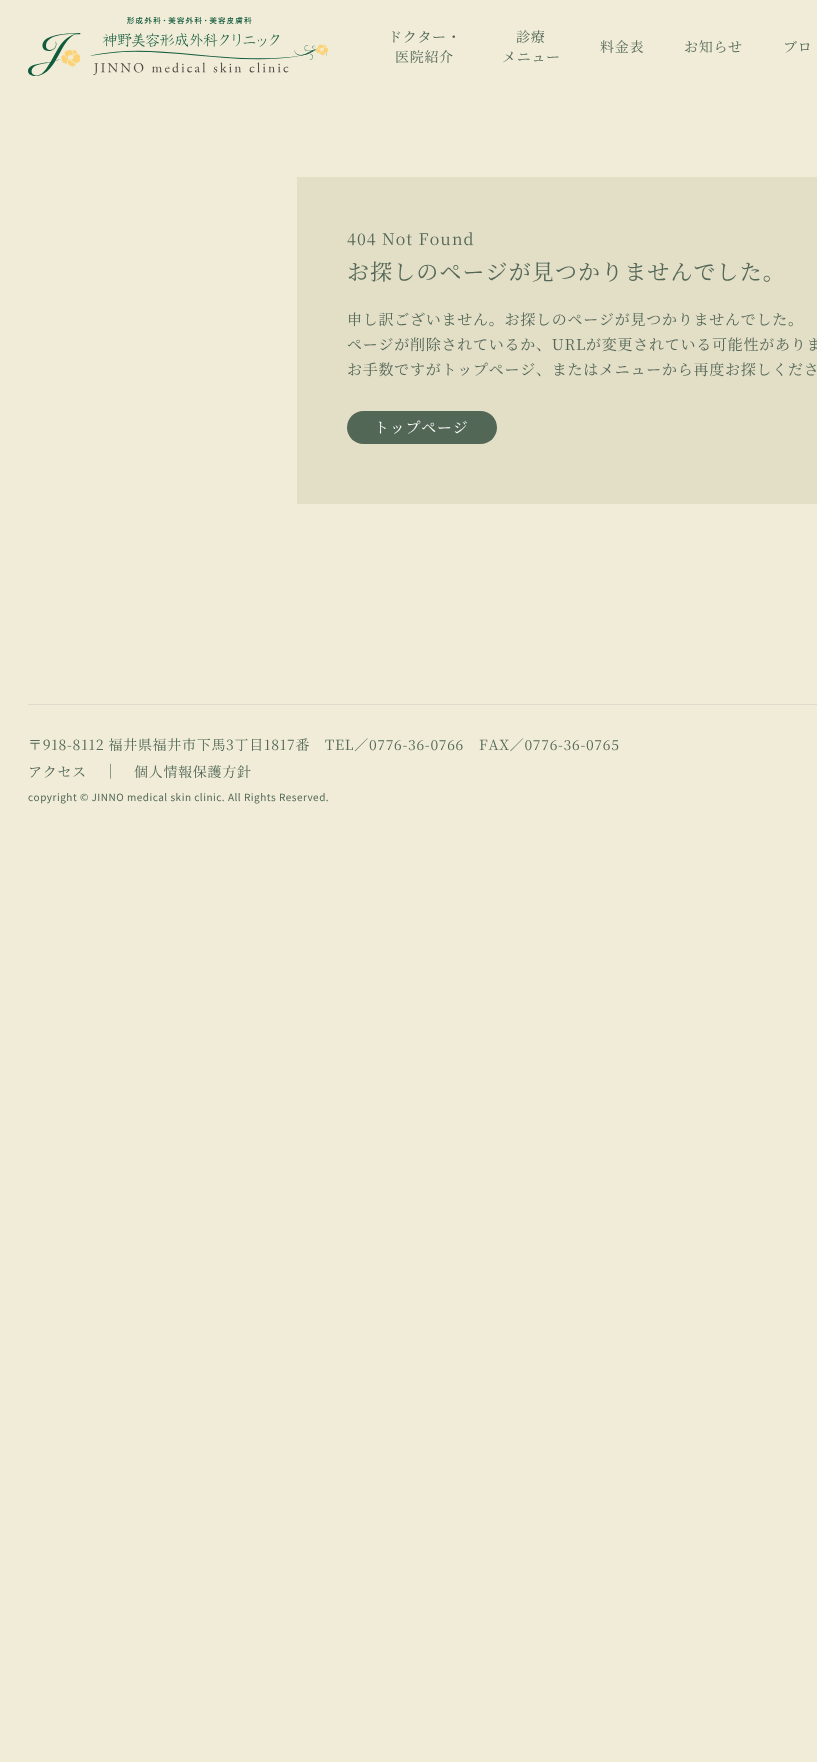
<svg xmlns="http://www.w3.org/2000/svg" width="817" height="1762">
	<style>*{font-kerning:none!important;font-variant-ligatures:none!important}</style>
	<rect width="100%" height="100%" fill="#F0ECD8" />
	<image x="28" y="17" width="300" height="59" href="assets/img1.png" />
	<g font-family="Noto Serif JP" font-size="14" letter-spacing="0.7" fill="#536757">
		<text x="388" y="42">ドクター・</text>
		<text x="395" y="62">医院紹介</text>
		<text x="516" y="42">診療</text>
		<text x="502" y="62">メニュー</text>
		<text x="600" y="52">料金表</text>
		<text x="684" y="52">お知らせ</text>
		<text x="783" y="52">ブロ</text>
	</g>
	<rect x="297" y="177" width="520" height="327" fill="#E3DEC6" />
	<text x="347" y="245" font-family="Noto Serif JP" font-size="16" letter-spacing="1.1" fill="#536757">404 Not Found</text>
	<text x="347" y="280" font-family="Noto Serif JP" font-size="22" letter-spacing="1.1" fill="#536757">お探しのページが見つかりませんでした。</text>
	<g font-family="Noto Serif JP" font-size="15" letter-spacing="0.75" fill="#536757">
		<text x="347" y="325">申し訳ございません。お探しのページが見つかりませんでした。</text>
		<text x="347" y="350">ページが削除されているか、URLが変更されている可能性がありま</text>
		<text x="347" y="375">お手数ですがトップページ、またはメニューから再度お探しくださ</text>
	</g>
	<rect x="347" y="411" width="150" height="33" rx="16.5" fill="#536757" />
	<text x="374" y="433" font-family="Noto Serif JP" font-size="15" letter-spacing="0.75" fill="#FFFFFF">トップページ</text>
	<rect x="28" y="704" width="789" height="1" fill="#DEDBCC" />
	<g font-family="Noto Serif JP" font-size="14" letter-spacing="0.7" fill="#536757">
		<text x="28" y="750">〒918-8112 福井県福井市下馬3丁目1817番</text>
		<text x="325" y="750">TEL／0776-36-0766</text>
		<text x="479" y="750">FAX／0776-36-0765</text>
		<text x="28" y="777">アクセス</text>
	</g>
	<text x="103" y="777" font-family="Noto Serif JP" font-size="15" letter-spacing="0.75" fill="#536757">｜</text>
	<text x="134" y="777" font-family="Noto Serif JP" font-size="14" letter-spacing="0.7" fill="#536757">個人情報保護方針</text>
	<text x="28" y="801" font-family="Noto Sans JP" font-size="10" letter-spacing="0.5" fill="#536757">copyright © JINNO medical skin clinic. All Rights Reserved.</text>
</svg>
